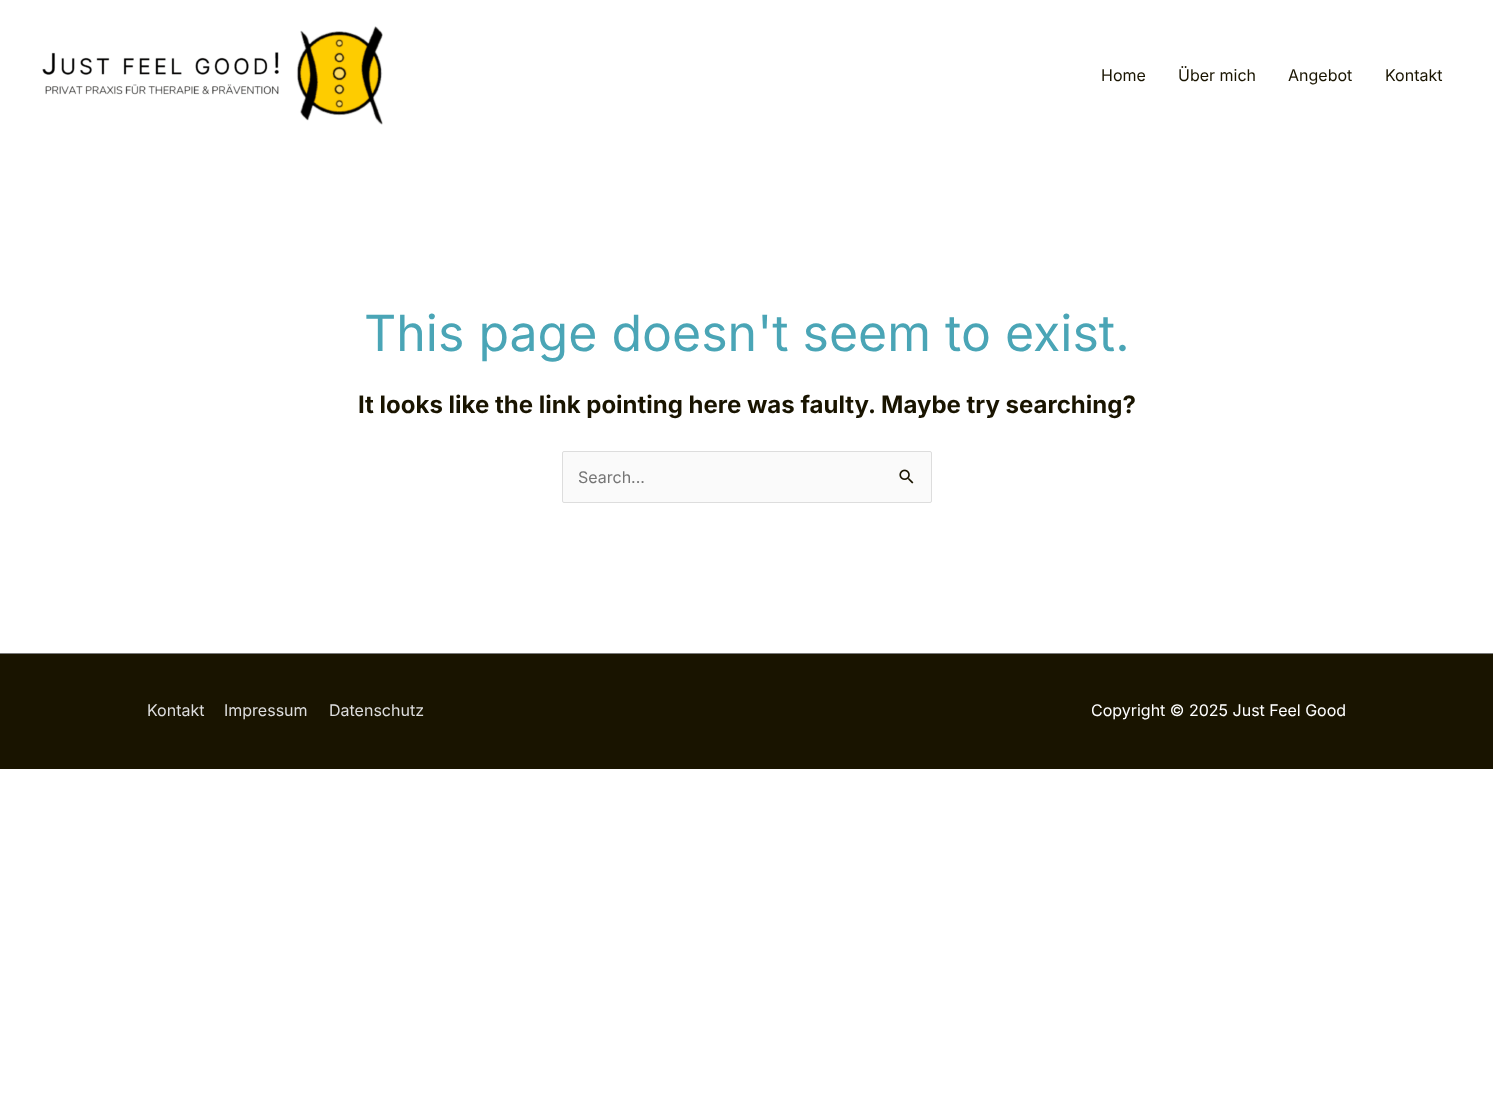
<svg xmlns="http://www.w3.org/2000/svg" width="1493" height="1094">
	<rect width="100%" height="100%" fill="#FFFFFF" />
	<image x="42" y="26" width="341" height="99" href="assets/img1.png" />
	<g font-family="Inter" font-size="16" fill="#191400">
		<text x="1101" y="81">Home</text>
		<text x="1178" y="81">Über mich</text>
		<text x="1288" y="81">Angebot</text>
		<text x="1385" y="81">Kontakt</text>
	</g>
	<text x="364" y="351" font-family="Inter" font-size="50" fill="#4AA5B6">This page doesn't seem to exist.</text>
	<text x="358" y="413" font-family="Inter" font-size="24" font-weight="700" fill="#191400">It looks like the link pointing here was faulty. Maybe try searching?</text>
	<rect x="562.5" y="451.5" width="369" height="51" rx="1.5" fill="#FAFAFA" stroke="#DDDDDD" />
	<text x="578" y="483" font-family="Inter" font-size="16" fill="#757575">Search...</text>
	<image x="899" y="469" width="15" height="15" href="assets/img2.png" />
	<rect x="0" y="653" width="1493" height="1" fill="#7A7A7A" />
	<rect x="0" y="654" width="1493" height="115" fill="#191400" />
	<g font-family="Inter" font-size="16" fill="#DDDDDD">
		<text x="147" y="716">Kontakt</text>
		<text x="224" y="716">Impressum</text>
		<text x="329" y="716">Datenschutz</text>
	</g>
	<text x="1091" y="716" font-family="Inter" font-size="16" fill="#FFFFFF">Copyright © 2025 Just Feel Good</text>
</svg>
